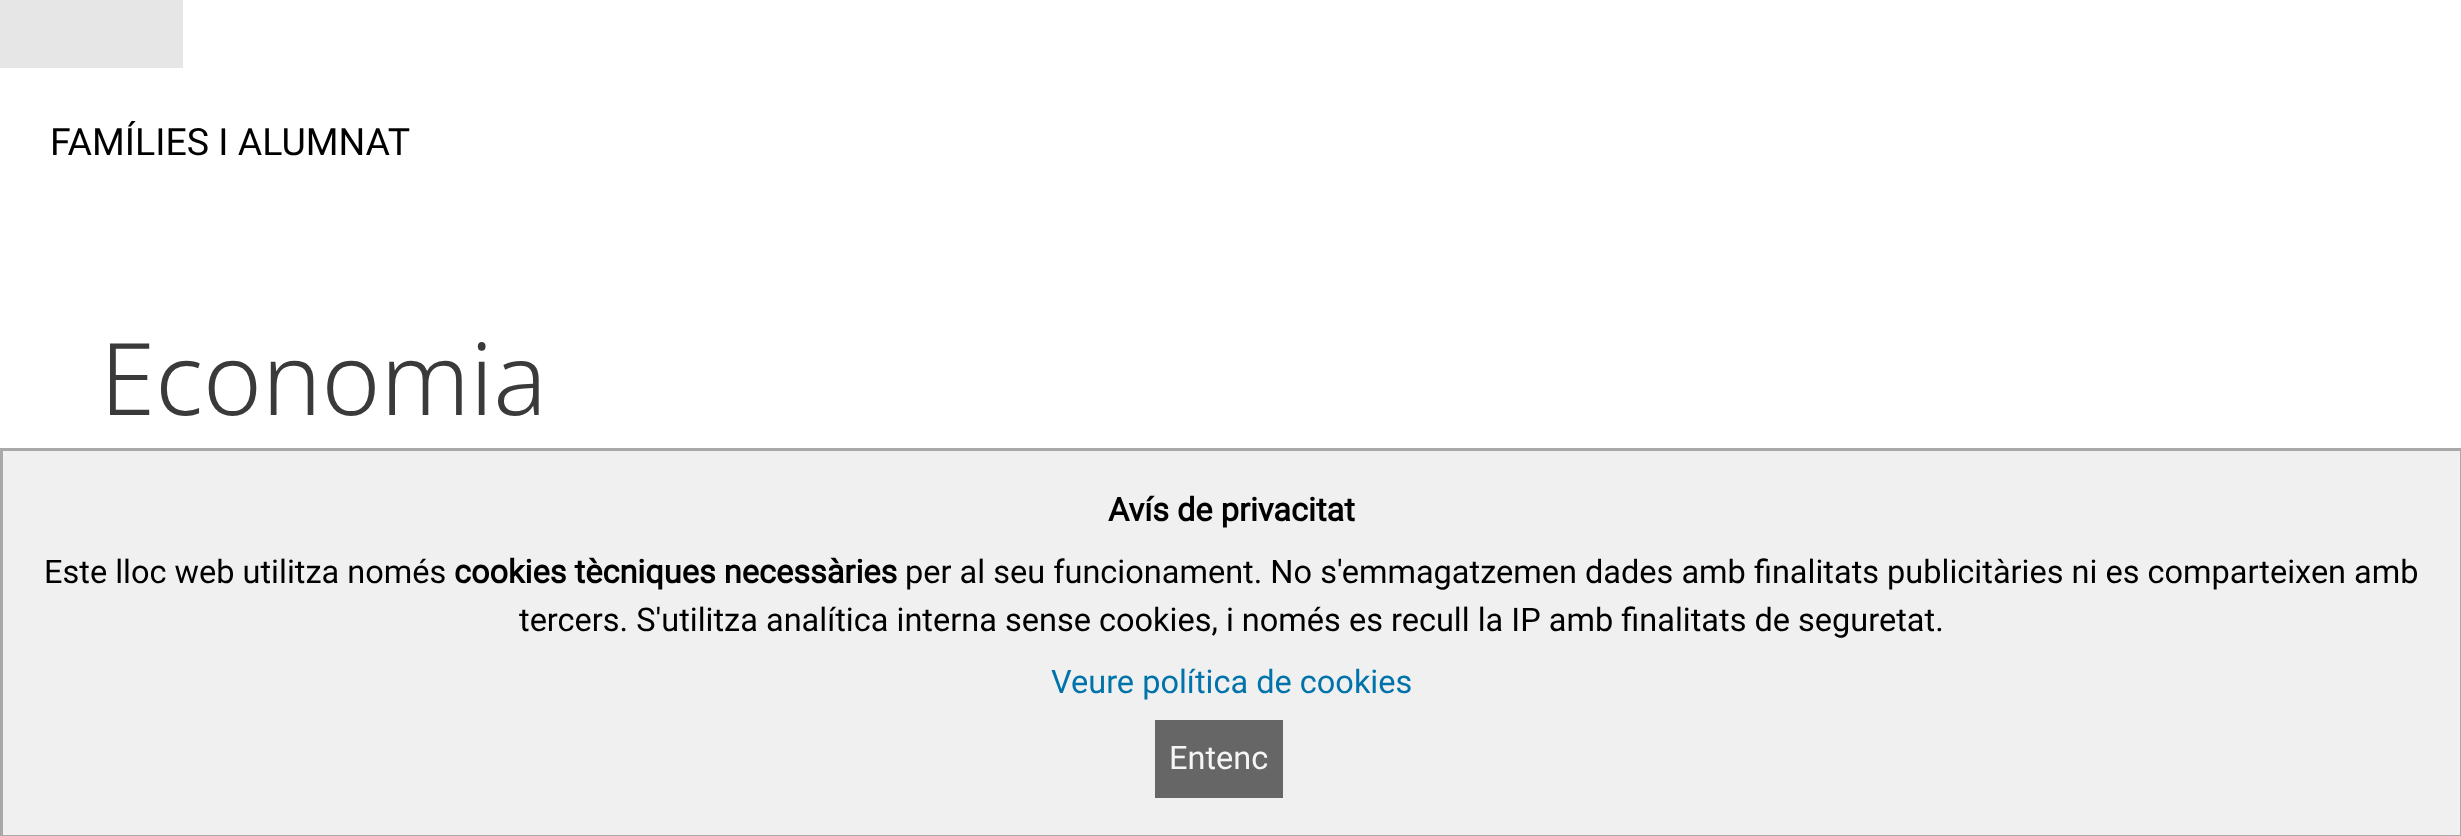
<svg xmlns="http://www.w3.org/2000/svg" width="2461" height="836">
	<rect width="100%" height="100%" fill="#FFFFFF" />
	<rect x="0" y="0" width="183" height="68" fill="#E6E6E6" />
	<text x="50" y="155" font-family="Roboto" font-size="37.5" fill="#000000">FAMÍLIES I ALUMNAT</text>
	<text x="100" y="415" font-family="Noto Sans" font-size="100" font-weight="300" fill="#3A3A3A">Economia</text>
	<rect x="1.5" y="449.5" width="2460" height="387" fill="#F0F0F0" stroke="#A9A9A9" stroke-width="3" />
	<text x="1108" y="521" font-family="Roboto" font-size="32.5" font-weight="700" fill="#000000">Avís de privacitat</text>
	<text x="44" y="583" font-family="Roboto" font-size="32.5" fill="#000000">Este lloc web utilitza només</text>
	<text x="454" y="583" font-family="Roboto" font-size="32.5" font-weight="700" fill="#000000">cookies tècniques necessàries</text>
	<g font-family="Roboto" font-size="32.5" fill="#000000">
		<text x="905" y="583">per al seu funcionament. No s'emmagatzemen dades amb finalitats publicitàries ni es comparteixen amb</text>
		<text x="519" y="631">tercers. S'utilitza analítica interna sense cookies, i només es recull la IP amb finalitats de seguretat.</text>
	</g>
	<text x="1051" y="693" font-family="Roboto" font-size="32.5" fill="#0073AA">Veure política de cookies</text>
	<rect x="1155" y="720" width="128" height="78" fill="#666666" />
	<text x="1169" y="769" font-family="Roboto" font-size="32.5" fill="#F5F5F5">Entenc</text>
</svg>
